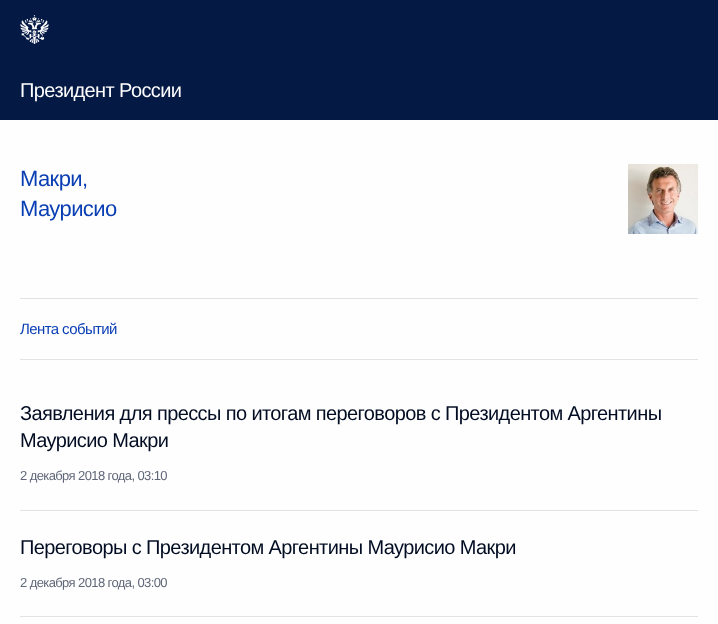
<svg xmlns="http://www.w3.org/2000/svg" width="718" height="624">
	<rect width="100%" height="100%" fill="#FEFEFE" />
	<rect x="0" y="0" width="718" height="120" fill="#051945" />
	<image x="20" y="15" width="29" height="29" href="assets/img1.png" />
	<text x="20" y="97" font-family="Liberation Sans" font-size="20" letter-spacing="-0.6" fill="#FEFEFE">Президент России</text>
	<g font-family="Liberation Sans" font-size="22" letter-spacing="-0.6" fill="#0A3FB4">
		<text x="20" y="186">Макри,</text>
		<text x="20" y="216">Маурисио</text>
	</g>
	<image x="628" y="164" width="70" height="70" href="assets/img2.png" />
	<rect x="20" y="298" width="678" height="1" fill="#E2E3E4" />
	<text x="20" y="334" font-family="Liberation Sans" font-size="15" letter-spacing="-0.6" fill="#0A3FB4">Лента событий</text>
	<rect x="20" y="359" width="678" height="1" fill="#E2E3E4" />
	<rect x="20" y="510" width="678" height="1" fill="#E2E3E4" />
	<g font-family="Liberation Sans" font-size="20" letter-spacing="-0.6" fill="#020C22">
		<text x="20" y="420">Заявления для прессы по итогам переговоров с Президентом Аргентины</text>
		<text x="20" y="447">Маурисио Макри</text>
	</g>
	<text x="20" y="480" font-family="Liberation Sans" font-size="13" letter-spacing="-0.6" fill="#606778">2 декабря 2018 года, 03:10</text>
	<rect x="20" y="616" width="678" height="1" fill="#E2E3E4" />
	<text x="20" y="554" font-family="Liberation Sans" font-size="20" letter-spacing="-0.6" fill="#020C22">Переговоры с Президентом Аргентины Маурисио Макри</text>
	<text x="20" y="587" font-family="Liberation Sans" font-size="13" letter-spacing="-0.6" fill="#606778">2 декабря 2018 года, 03:00</text>
</svg>
